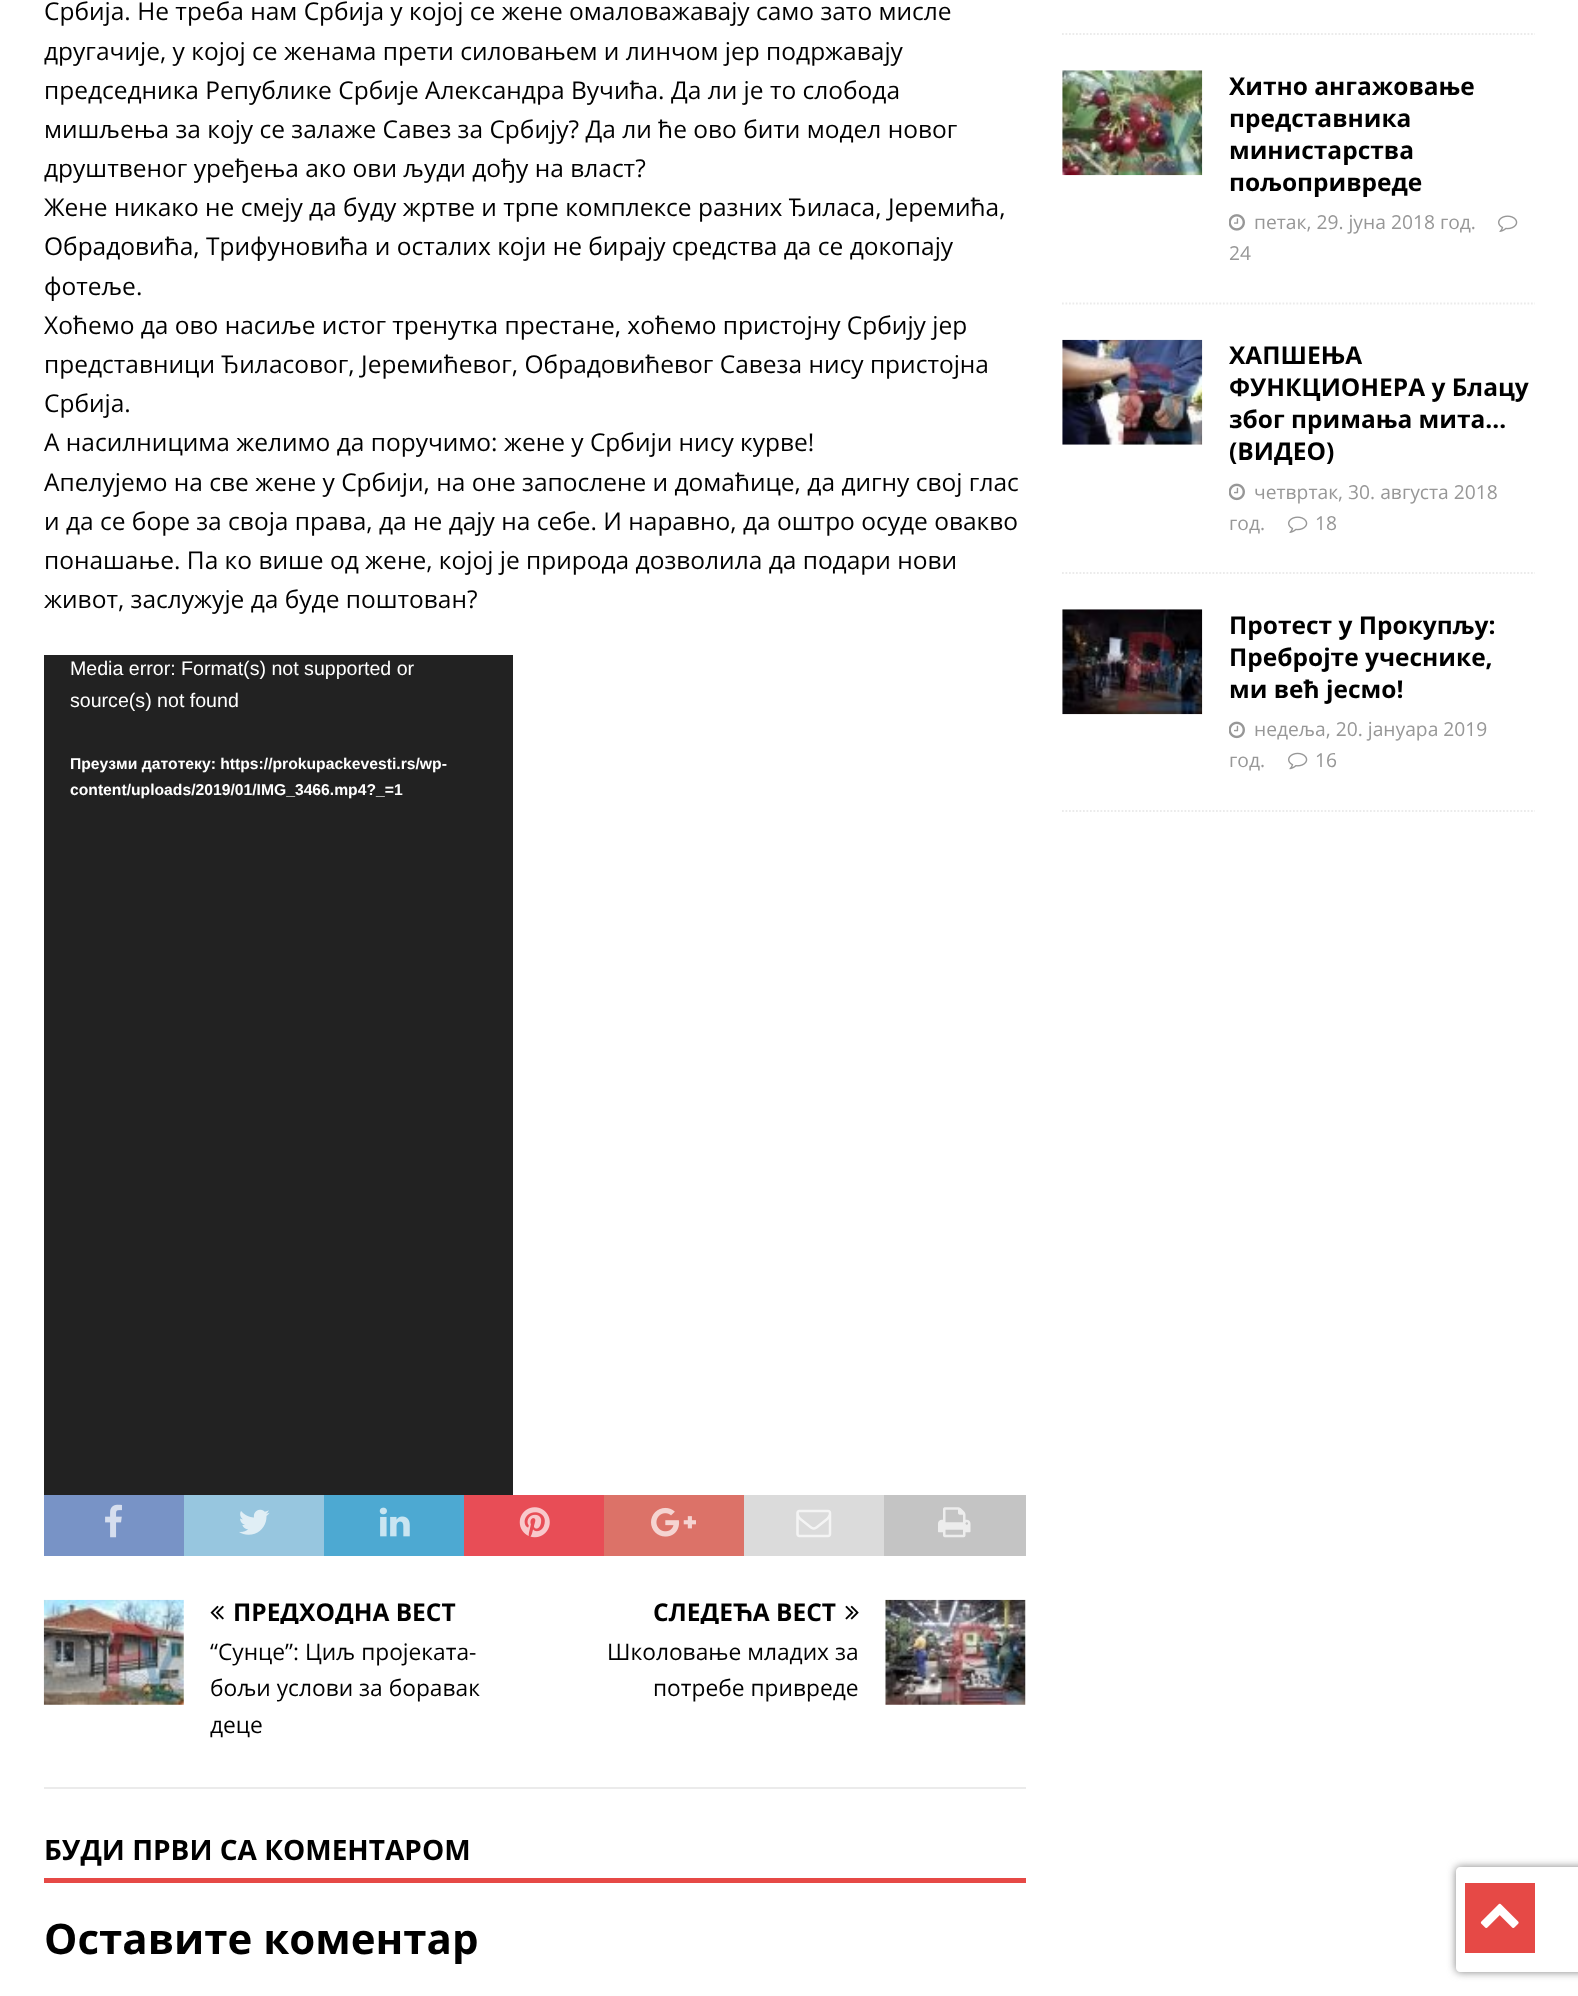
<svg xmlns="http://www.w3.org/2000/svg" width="1578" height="1996">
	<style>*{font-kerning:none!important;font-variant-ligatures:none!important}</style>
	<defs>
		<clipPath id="clip1"><rect x="210" y="1600" width="312" height="24" /></clipPath>
		<clipPath id="clip2"><rect x="546" y="1600" width="313" height="24" /></clipPath>
		<clipPath id="clip3"><path d="M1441 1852H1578V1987H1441ZM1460 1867H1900C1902 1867 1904 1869 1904 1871V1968C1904 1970 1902 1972 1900 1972H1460C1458 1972 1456 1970 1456 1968V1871C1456 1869 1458 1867 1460 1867Z" clip-rule="evenodd" /></clipPath>
	</defs>
	<rect width="100%" height="100%" fill="#FFFFFF" />
	<g font-family="Open Sans" font-size="24.5" fill="#000000">
		<text x="44" y="20">Србија. Не треба нам Србија у којој се жене омаловажавају само зато мисле</text>
		<text x="44" y="60">другачије, у којој се женама прети силовањем и линчом јер подржавају</text>
		<text x="44" y="99">председника Републике Србије Александра Вучића. Да ли је то слобода</text>
		<text x="44" y="138">мишљења за коју се залаже Савез за Србију? Да ли ће ово бити модел новог</text>
		<text x="44" y="177">друштвеног уређења ако ови људи дођу на власт?</text>
		<text x="44" y="216">Жене никако не смеју да буду жртве и трпе комплексе разних Ђиласа, Јеремића,</text>
		<text x="44" y="255">Обрадовића, Трифуновића и осталих који не бирају средства да се докопају</text>
		<text x="44" y="295">фотеље.</text>
		<text x="44" y="334">Хоћемо да ово насиље истог тренутка престане, хоћемо пристојну Србију јер</text>
		<text x="44" y="373">представници Ђиласовог, Јеремићевог, Обрадовићевог Савеза нису пристојна</text>
		<text x="44" y="412">Србија.</text>
		<text x="44" y="451">А насилницима желимо да поручимо: жене у Србији нису курве!</text>
		<text x="44" y="491">Апелујемо на све жене у Србији, на оне запослене и домаћице, да дигну свој глас</text>
		<text x="44" y="530">и да се боре за своја права, да не дају на себе. И наравно, да оштро осуде овакво</text>
		<text x="44" y="569">понашање. Па ко више од жене, којој је природа дозволила да подари нови</text>
		<text x="44" y="608">живот, заслужује да буде поштован?</text>
	</g>
	<rect x="44" y="655" width="469" height="840" fill="#222222" />
	<g font-family="Liberation Sans" font-size="19.6" fill="#FFFFFF">
		<text x="70" y="675">Media error: Format(s) not supported or</text>
		<text x="70" y="707">source(s) not found</text>
	</g>
	<g font-family="Liberation Sans" font-size="15.7" font-weight="700" fill="#FFFFFF">
		<text x="70" y="769">Преузми датотеку: https://prokupackevesti.rs/wp-</text>
		<text x="70" y="795">content/uploads/2019/01/IMG_3466.mp4?_=1</text>
	</g>
	<rect x="44" y="1495" width="140" height="61" fill="#7893C6" />
	<image x="105" y="1504" width="17" height="34" href="assets/img1.png" />
	<rect x="184" y="1495" width="140" height="61" fill="#97C6DF" />
	<image x="239" y="1509" width="31" height="26" href="assets/img2.png" />
	<rect x="324" y="1495" width="140" height="61" fill="#4DA9D2" />
	<image x="379" y="1507" width="31" height="30" href="assets/img3.png" />
	<rect x="464" y="1495" width="140" height="61" fill="#E84D56" />
	<image x="519" y="1507" width="31" height="31" href="assets/img4.png" />
	<rect x="604" y="1495" width="140" height="61" fill="#DC7268" />
	<image x="651" y="1507" width="45" height="30" href="assets/img5.png" />
	<rect x="744" y="1495" width="140" height="61" fill="#DBDBDB" />
	<image x="796" y="1509" width="36" height="29" href="assets/img6.png" />
	<rect x="884" y="1495" width="142" height="61" fill="#C4C4C4" />
	<image x="938" y="1507" width="33" height="31" href="assets/img7.png" />
	<rect x="44" y="1787" width="982" height="2" fill="#EBEBEB" />
	<image x="43" y="1599" width="141" height="106" href="assets/img8.png" />
	<image x="210" y="1605" width="14" height="15" href="assets/img9.png" />
	<g clip-path="url(#clip1)">
		<text x="233" y="1621" font-family="Open Sans" font-size="24.5" font-weight="700" fill="#000000">ПРЕДХОДНА ВЕСТ</text>
	</g>
	<g font-family="Open Sans" font-size="22.75" fill="#000000">
		<text x="210" y="1660">“Сунце”: Циљ пројеката-</text>
		<text x="210" y="1696">бољи услови за боравак</text>
		<text x="210" y="1733">деце</text>
	</g>
	<g clip-path="url(#clip2)">
		<text x="653" y="1621" font-family="Open Sans" font-size="24.5" font-weight="700" fill="#000000">СЛЕДЕЋА ВЕСТ</text>
	</g>
	<image x="845" y="1605" width="14" height="15" href="assets/img10.png" />
	<image x="885" y="1599" width="141" height="106" href="assets/img11.png" />
	<g font-family="Open Sans" font-size="22.75" fill="#000000">
		<text x="607" y="1660">Школовање младих за</text>
		<text x="653" y="1696">потребе привреде</text>
	</g>
	<rect x="44" y="1878" width="982" height="5" fill="#E64946" />
	<text x="44" y="1860" font-family="Open Sans" font-size="28" font-weight="700" fill="#000000">БУДИ ПРВИ СА КОМЕНТАРОМ</text>
	<text x="44" y="1954" font-family="Open Sans" font-size="42" font-weight="700" fill="#000000">Оставите коментар</text>
	<path d="M1062 34H1535" fill="none" stroke="#EBEBEB" stroke-width="1.8" stroke-dasharray="1.75 1.75" />
	<path d="M1062 303.5H1535" fill="none" stroke="#EBEBEB" stroke-width="1.8" stroke-dasharray="1.75 1.75" />
	<image x="1062" y="70" width="141" height="106" href="assets/img12.png" />
	<g font-family="Open Sans" font-size="24.5" font-weight="700" fill="#000000">
		<text x="1229" y="95">Хитно ангажовање</text>
		<text x="1229" y="127">представника</text>
		<text x="1229" y="159">министарства</text>
		<text x="1229" y="191">пољопривреде</text>
	</g>
	<image x="1229" y="214" width="16" height="17" href="assets/img13.png" />
	<text x="1254" y="229" font-family="Open Sans" font-size="19.25" fill="#979797">петак, 29. јуна 2018 год.</text>
	<image x="1498" y="215" width="20" height="17" href="assets/img14.png" />
	<text x="1229" y="260" font-family="Open Sans" font-size="19.25" fill="#979797">24</text>
	<path d="M1062 573H1535" fill="none" stroke="#EBEBEB" stroke-width="1.8" stroke-dasharray="1.75 1.75" />
	<image x="1062" y="339" width="141" height="106" href="assets/img15.png" />
	<g font-family="Open Sans" font-size="24.5" font-weight="700" fill="#000000">
		<text x="1229" y="364">ХАПШЕЊА</text>
		<text x="1229" y="396">ФУНКЦИОНЕРА у Блацу</text>
		<text x="1229" y="428">због примања мита…</text>
		<text x="1229" y="460">(ВИДЕО)</text>
	</g>
	<image x="1229" y="483" width="16" height="18" href="assets/img16.png" />
	<g font-family="Open Sans" font-size="19.25" fill="#979797">
		<text x="1254" y="499">четвртак, 30. августа 2018</text>
		<text x="1229" y="530">год.</text>
	</g>
	<image x="1288" y="516" width="20" height="17" href="assets/img17.png" />
	<text x="1315" y="530" font-family="Open Sans" font-size="19.25" fill="#979797">18</text>
	<path d="M1062 811H1535" fill="none" stroke="#EBEBEB" stroke-width="1.8" stroke-dasharray="1.75 1.75" />
	<image x="1062" y="609" width="141" height="106" href="assets/img18.png" />
	<g font-family="Open Sans" font-size="24.5" font-weight="700" fill="#000000">
		<text x="1229" y="634">Протест у Прокупљу:</text>
		<text x="1229" y="666">Пребројте учеснике,</text>
		<text x="1229" y="698">ми већ јесмо!</text>
	</g>
	<image x="1229" y="721" width="16" height="18" href="assets/img16.png" />
	<g font-family="Open Sans" font-size="19.25" fill="#979797">
		<text x="1254" y="736">недеља, 20. јануара 2019</text>
		<text x="1229" y="767">год.</text>
	</g>
	<image x="1288" y="752" width="20" height="18" href="assets/img19.png" />
	<text x="1315" y="767" font-family="Open Sans" font-size="19.25" fill="#979797">16</text>
	<g clip-path="url(#clip3)">
		<rect x="1456" y="1867" width="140" height="105" rx="4" fill="#808080" filter="blur(4.5px)" />
	</g>
	<rect x="1465" y="1883" width="70" height="70" fill="#E64946" />
	<image x="1480" y="1903" width="39" height="25" href="assets/img20.png" />
</svg>
